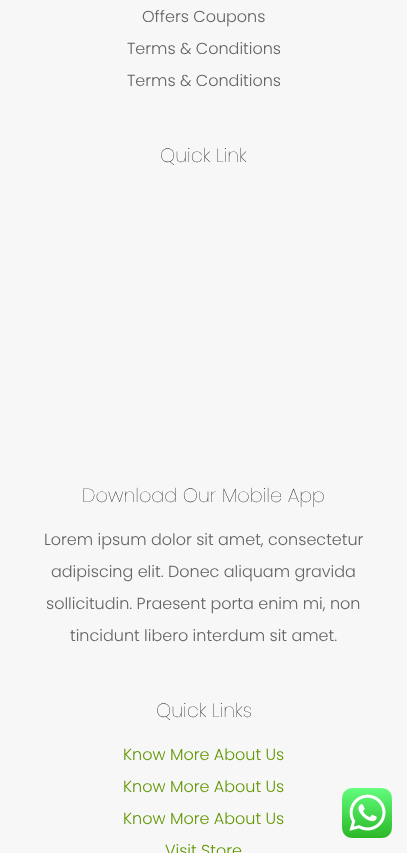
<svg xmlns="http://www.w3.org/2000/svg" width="407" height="853">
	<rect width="100%" height="100%" fill="#F7F7F7" />
	<g font-family="Poppins" font-size="16" font-weight="300" fill="#636363">
		<text x="142" y="22">Offers Coupons</text>
		<text x="127" y="54">Terms &amp; Conditions</text>
		<text x="127" y="86">Terms &amp; Conditions</text>
	</g>
	<g font-family="Poppins" font-size="19.25" font-weight="100" fill="#000000">
		<text x="160" y="162">Quick Link</text>
		<text x="82" y="502">Download Our Mobile App</text>
	</g>
	<g font-family="Poppins" font-size="16" font-weight="300" fill="#636363">
		<text x="44" y="545">Lorem ipsum dolor sit amet, consectetur</text>
		<text x="51" y="577">adipiscing elit. Donec aliquam gravida</text>
		<text x="46" y="609">sollicitudin. Praesent porta enim mi, non</text>
		<text x="70" y="641">tincidunt libero interdum sit amet.</text>
	</g>
	<text x="156" y="717" font-family="Poppins" font-size="19.25" font-weight="100" fill="#000000">Quick Links</text>
	<g font-family="Poppins" font-size="16" font-weight="300" fill="#619702">
		<text x="123" y="760">Know More About Us</text>
		<text x="123" y="792">Know More About Us</text>
		<text x="123" y="824">Know More About Us</text>
		<text x="165" y="856">Visit Store</text>
	</g>
	<image x="342" y="788" width="50" height="50" href="assets/img1.png" />
</svg>
